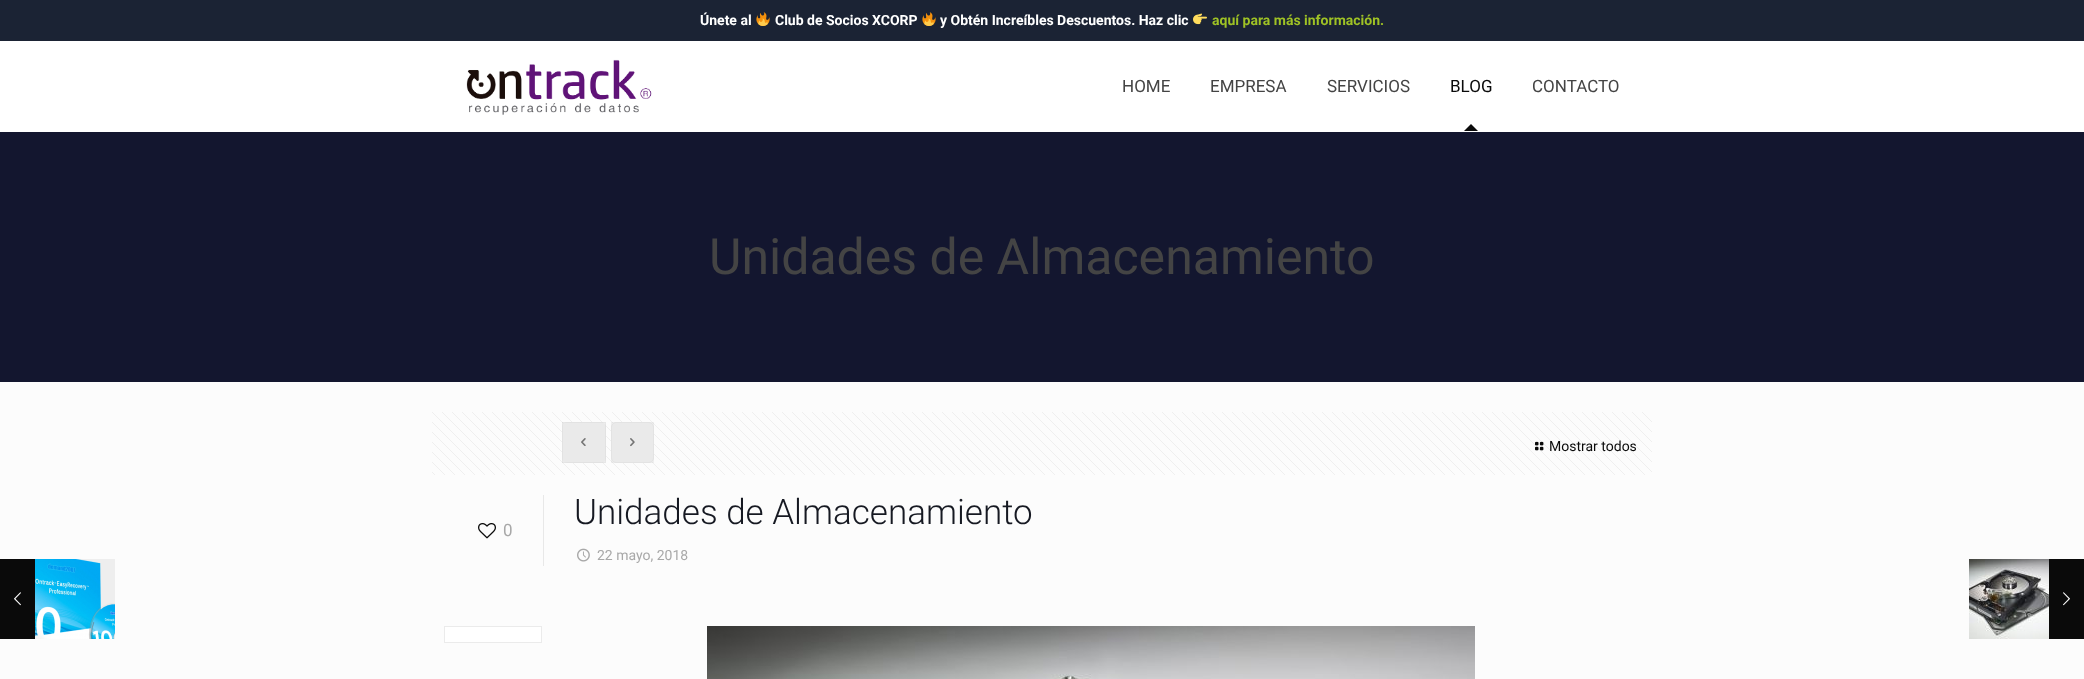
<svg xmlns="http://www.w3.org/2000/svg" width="2084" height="679">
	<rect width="100%" height="100%" fill="#FCFCFC" />
	<rect x="0" y="0" width="2084" height="41" fill="#1B2334" />
	<text x="700" y="25" font-family="Roboto" font-size="14" font-weight="700" fill="#FFFFFF">Únete al</text>
	<image x="756" y="12" width="14" height="14" href="assets/img1.png" />
	<text x="775" y="25" font-family="Roboto" font-size="14" font-weight="700" fill="#FFFFFF">Club de Socios XCORP</text>
	<image x="922" y="12" width="14" height="14" href="assets/img1.png" />
	<text x="940" y="25" font-family="Roboto" font-size="14" font-weight="700" fill="#FFFFFF">y Obtén Increíbles Descuentos. Haz clic</text>
	<image x="1193" y="13" width="14" height="12" href="assets/img2.png" />
	<text x="1212" y="25" font-family="Roboto" font-size="14" font-weight="700" fill="#9FC225">aquí para más información.</text>
	<rect x="0" y="132" width="2084" height="250" fill="#13162F" />
	<rect x="0" y="41" width="2084" height="91" fill="#FFFFFF" />
	<image x="466" y="59" width="186" height="56" href="assets/img3.png" />
	<g font-family="Roboto" font-size="17" fill="#444444">
		<text x="1122" y="92">HOME</text>
		<text x="1210" y="92">EMPRESA</text>
		<text x="1327" y="92">SERVICIOS</text>
	</g>
	<text x="1450" y="92" font-family="Roboto" font-size="17" fill="#0A0A0A">BLOG</text>
	<path d="M1478 131H1464L1471 124Z" fill="#0A0A0A" />
	<text x="1532" y="92" font-family="Roboto" font-size="17" fill="#444444">CONTACTO</text>
	<text x="709" y="274" font-family="Roboto" font-size="50" fill="#444444">Unidades de Almacenamiento</text>
	<image x="432" y="412" width="1220" height="63" href="assets/img4.png" />
	<rect x="562" y="422" width="44" height="41" rx="5" fill="#F7F7F7" />
	<rect x="562.5" y="422.5" width="43" height="40" fill="none" stroke="#000000" stroke-opacity="0.03" />
	<image x="581" y="438" width="5" height="8" href="assets/img5.png" />
	<rect x="562" y="422" width="44" height="41" fill="#000000" fill-opacity="0.05" />
	<rect x="611.5" y="422.5" width="42" height="40" rx="4.5" fill="#F7F7F7" stroke="#F0F0F0" />
	<image x="630" y="438" width="5" height="9" href="assets/img6.png" />
	<rect x="611" y="422" width="43" height="41" fill="#000000" fill-opacity="0.05" />
	<image x="1535" y="441" width="9" height="10" href="assets/img7.png" />
	<text x="1549" y="451" font-family="Roboto" font-size="14" fill="#0A0A0A">Mostrar todos</text>
	<image x="478" y="523" width="18" height="16" href="assets/img8.png" />
	<text x="503" y="536" font-family="Roboto" font-size="17" fill="#A8A8A8">0</text>
	<rect x="543" y="495" width="1" height="71" fill="#E8E8E8" />
	<text x="574" y="524" font-family="Roboto" font-size="35" font-weight="300" fill="#161922">Unidades de Almacenamiento</text>
	<image x="577" y="548" width="13" height="14" href="assets/img9.png" />
	<text x="597" y="560" font-family="Roboto" font-size="14" fill="#A8A8A8">22 mayo, 2018</text>
	<rect x="444.5" y="626.5" width="97" height="16" fill="#FFFFFF" stroke="#EBEBEB" />
	<image x="707" y="626" width="768" height="53" href="assets/img10.png" />
	<rect x="0" y="559" width="35" height="80" fill="#0A0A0A" />
	<image x="14" y="592" width="7" height="14" href="assets/img11.png" />
	<rect x="75" y="559" width="40" height="80" fill="#EEEEEE" />
	<image x="35" y="559" width="80" height="80" href="assets/img12.png" />
	<image x="1969" y="559" width="80" height="80" href="assets/img13.png" />
	<rect x="2049" y="559" width="35" height="80" fill="#0A0A0A" />
	<image x="2063" y="592" width="7" height="14" href="assets/img14.png" />
</svg>
